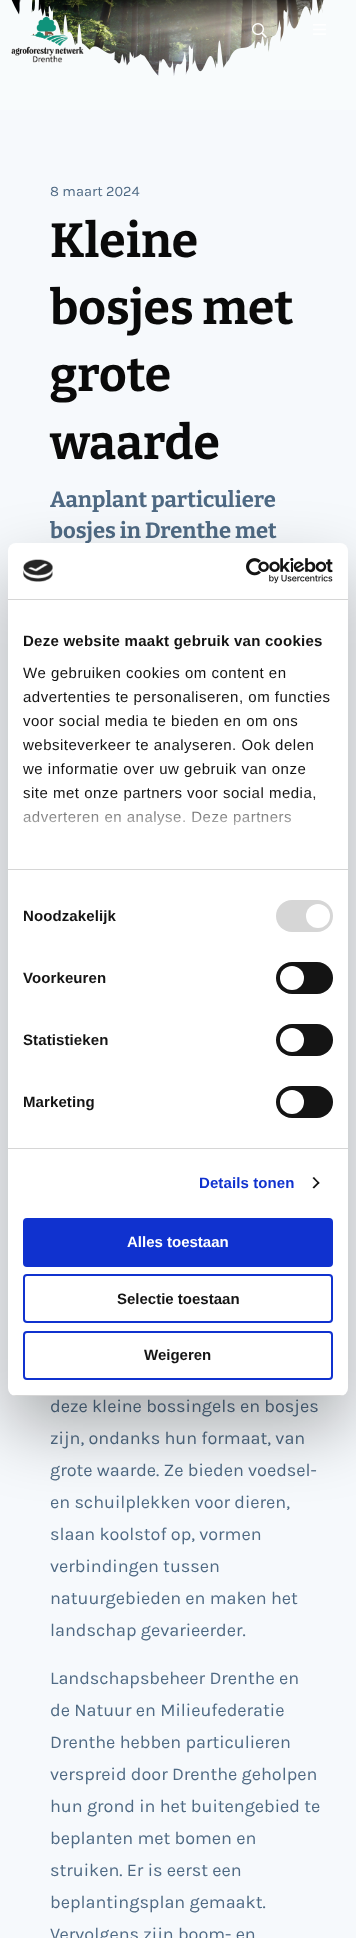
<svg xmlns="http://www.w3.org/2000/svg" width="356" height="1938">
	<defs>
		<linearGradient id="g1" gradientUnits="userSpaceOnUse" x1="172" y1="869" x2="172" y2="794"><stop offset="0" stop-color="#FFFFFF" /><stop offset="0.5" stop-color="#FFFFFF" stop-opacity="0.8" /><stop offset="1" stop-color="#FFFFFF" stop-opacity="0" /></linearGradient>
		<clipPath id="clip1"><rect x="8" y="543" width="340" height="853" rx="8" /></clipPath>
	</defs>
	<rect width="100%" height="100%" fill="#F6F9FC" />
	<image x="11" y="0" width="313" height="76" href="assets/img4.png" />
	<image x="0" y="0" width="356" height="110" href="assets/img5.png" />
	<image x="11" y="15" width="73" height="48" href="assets/img1.png" />
	<image x="252" y="23" width="15" height="15" href="assets/img2.png" />
	<image x="313" y="24" width="13" height="11" href="assets/img3.png" />
	<text x="50" y="196" font-family="Karla" font-size="14.5" fill="#4F6A84">8 maart 2024</text>
	<g font-family="Bitter" font-size="48" font-weight="100" fill="#0A0A0A">
		<text x="50" y="257">Kleine</text>
		<text x="50" y="324">bosjes met</text>
		<text x="50" y="391">grote</text>
		<text x="50" y="459">waarde</text>
	</g>
	<g font-family="Bitter" font-size="22" font-weight="100" fill="#4F6A84">
		<text x="50" y="507">Aanplant particuliere</text>
		<text x="50" y="538">bosjes in Drenthe met</text>
	</g>
	<g font-family="Karla" font-size="18" fill="#4F6A84">
		<text x="50" y="1412">deze kleine bossingels en bosjes</text>
		<text x="50" y="1444">zijn, ondanks hun formaat, van</text>
		<text x="50" y="1476">grote waarde. Ze bieden voedsel-</text>
		<text x="50" y="1508">en schuilplekken voor dieren,</text>
		<text x="50" y="1540">slaan koolstof op, vormen</text>
		<text x="50" y="1572">verbindingen tussen</text>
		<text x="50" y="1604">natuurgebieden en maken het</text>
		<text x="50" y="1636">landschap gevarieerder.</text>
		<text x="50" y="1684">Landschapsbeheer Drenthe en</text>
		<text x="50" y="1716">de Natuur en Milieufederatie</text>
		<text x="50" y="1748">Drenthe hebben particulieren</text>
		<text x="50" y="1780">verspreid door Drenthe geholpen</text>
		<text x="50" y="1812">hun grond in het buitengebied te</text>
		<text x="50" y="1844">beplanten met bomen en</text>
		<text x="50" y="1876">struiken. Er is eerst een</text>
		<text x="50" y="1908">beplantingsplan gemaakt.</text>
		<text x="50" y="1940">Vervolgens zijn boom- en</text>
	</g>
	<rect x="8" y="575" width="340" height="853" rx="8" fill="#000000" fill-opacity="0.3" filter="blur(34px)" />
	<rect x="8" y="543" width="340" height="853" rx="8" fill="#FFFFFF" />
	<rect x="8" y="599" width="340" height="1" fill="#D6D6D6" />
	<image x="23" y="559" width="30" height="23" href="assets/img6.png" />
	<image x="246" y="558" width="87" height="26" href="assets/img7.png" />
	<rect x="8" y="869" width="340" height="1" fill="#D6D6D6" />
	<text x="23" y="646" font-family="Liberation Sans" font-size="15" font-weight="700" letter-spacing="0.25" fill="#141414">Deze website maakt gebruik van cookies</text>
	<g font-family="Liberation Sans" font-size="15" letter-spacing="0.5" fill="#141414">
		<text x="23" y="678">We gebruiken cookies om content en</text>
		<text x="23" y="702">advertenties te personaliseren, om functies</text>
		<text x="23" y="726">voor social media te bieden en om ons</text>
		<text x="23" y="750">websiteverkeer te analyseren. Ook delen</text>
		<text x="23" y="774">we informatie over uw gebruik van onze</text>
		<text x="23" y="798">site met onze partners voor social media,</text>
		<text x="23" y="822">adverteren en analyse. Deze partners</text>
	</g>
	<rect x="23" y="795" width="292" height="31" fill="url(#g1)" />
	<rect x="8" y="1148" width="340" height="1" fill="#D6D6D6" />
	<text x="23" y="921" font-family="Liberation Sans" font-size="15" font-weight="700" letter-spacing="0.1" fill="#141414">Noodzakelijk</text>
	<rect x="276" y="900" width="57" height="32" rx="16" fill="#D6D6D6" />
	<circle cx="318" cy="916" r="12" fill="#FFFFFF" />
	<text x="23" y="983" font-family="Liberation Sans" font-size="15" font-weight="700" letter-spacing="0.1" fill="#141414">Voorkeuren</text>
	<rect x="276" y="962" width="57" height="32" rx="16" fill="#141414" />
	<circle cx="292" cy="978" r="12" fill="#FFFFFF" />
	<text x="23" y="1045" font-family="Liberation Sans" font-size="15" font-weight="700" letter-spacing="0.1" fill="#141414">Statistieken</text>
	<rect x="276" y="1024" width="57" height="32" rx="16" fill="#141414" />
	<circle cx="292" cy="1040" r="12" fill="#FFFFFF" />
	<text x="23" y="1107" font-family="Liberation Sans" font-size="15" font-weight="700" letter-spacing="0.1" fill="#141414">Marketing</text>
	<rect x="276" y="1086" width="57" height="32" rx="16" fill="#141414" />
	<circle cx="292" cy="1102" r="12" fill="#FFFFFF" />
	<text x="199" y="1188" font-family="Liberation Sans" font-size="15" font-weight="700" letter-spacing="0.1" fill="#1032CF">Details tonen</text>
	<path d="M314 1177L319.5 1183L318.5 1184L312.5 1178Z" fill="#141414" />
	<path d="M318.5 1181.5L319.5 1183L314 1188.5L312.5 1187.5Z" fill="#141414" />
	<g clip-path="url(#clip1)">
		<rect x="8" y="1395" width="340" height="1" fill="#D6D6D6" />
	</g>
	<rect x="24" y="1219" width="308" height="47" rx="3" fill="#1032CF" stroke="#1032CF" stroke-width="2" />
	<text x="127" y="1247" font-family="Liberation Sans" font-size="15" font-weight="700" fill="#FFFFFF">Alles toestaan</text>
	<rect x="24" y="1275" width="308" height="47" rx="3" fill="none" stroke="#1032CF" stroke-width="2" />
	<text x="117" y="1304" font-family="Liberation Sans" font-size="15" font-weight="700" fill="#141414">Selectie toestaan</text>
	<rect x="24" y="1332" width="308" height="47" rx="3" fill="none" stroke="#1032CF" stroke-width="2" />
	<text x="144" y="1360" font-family="Liberation Sans" font-size="15" font-weight="700" fill="#141414">Weigeren</text>
</svg>
